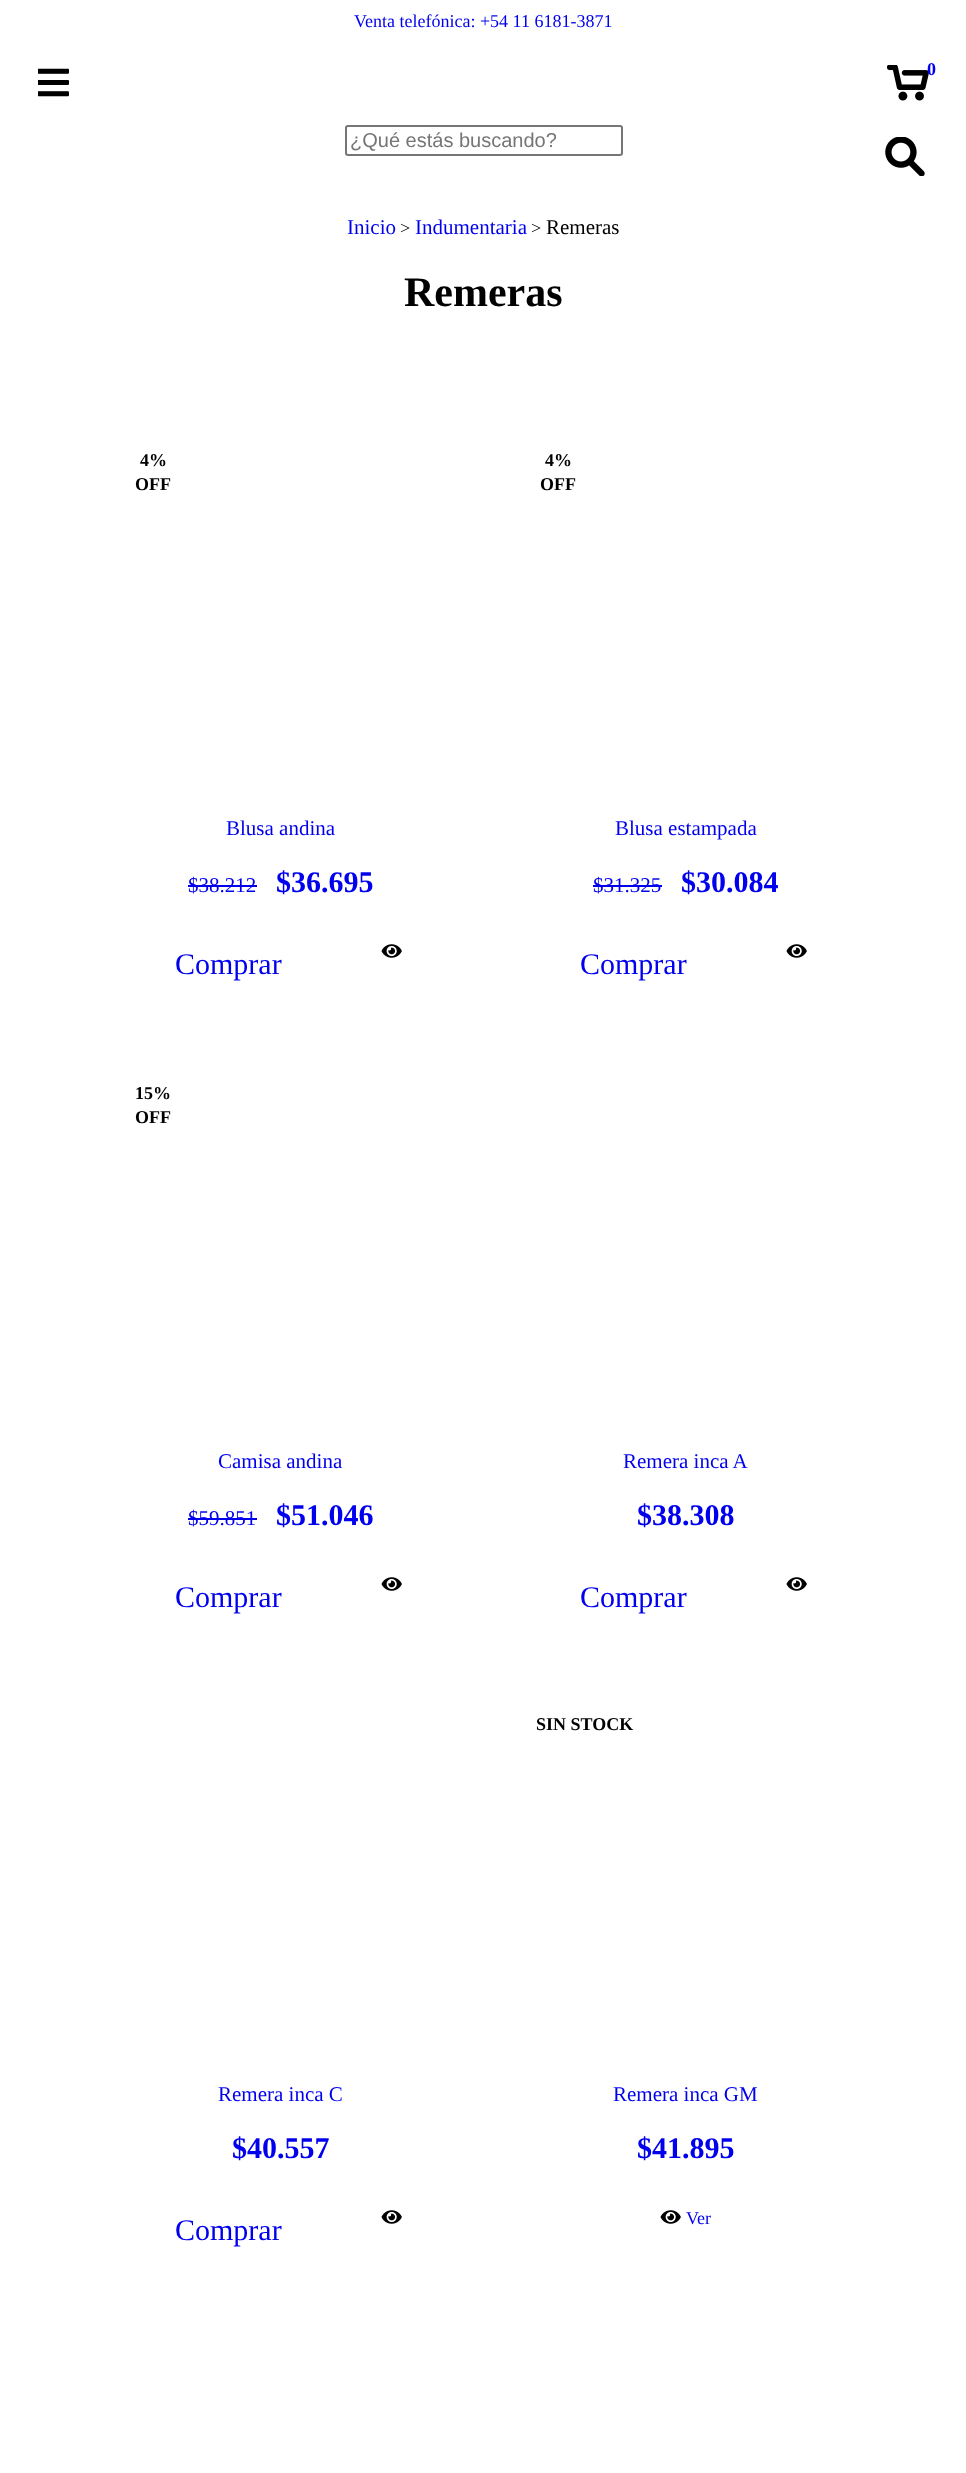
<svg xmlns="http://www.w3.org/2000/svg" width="966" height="2473">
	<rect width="100%" height="100%" fill="#FFFFFF" />
	<text x="354" y="27" font-family="Liberation Serif" font-size="18" fill="#0000EE">Venta telefónica: +54 11 6181-3871</text>
	<image x="38" y="68" width="31" height="29" href="assets/img1.png" />
	<image x="887" y="65" width="42" height="36" href="assets/img2.png" />
	<text x="927" y="75" font-family="Liberation Serif" font-size="18" font-weight="700" fill="#0000EE">0</text>
	<rect x="346" y="126" width="276" height="29" rx="2" fill="none" stroke="#767676" stroke-width="2" />
	<text x="350" y="147" font-family="Liberation Sans" font-size="20" fill="#757575">¿Qué estás buscando?</text>
	<image x="885" y="137" width="40" height="39" href="assets/img3.png" />
	<text x="347" y="234" font-family="Liberation Serif" font-size="21" fill="#0000EE">Inicio</text>
	<text x="400" y="234" font-family="Liberation Serif" font-size="18" fill="#000000">&gt;</text>
	<text x="415" y="234" font-family="Liberation Serif" font-size="21" fill="#0000EE">Indumentaria</text>
	<text x="531" y="234" font-family="Liberation Serif" font-size="18" fill="#000000">&gt;</text>
	<text x="546" y="234" font-family="Liberation Serif" font-size="21" fill="#000000">Remeras</text>
	<text x="404" y="306" font-family="Liberation Serif" font-size="42" font-weight="700" fill="#000000">Remeras</text>
	<g font-family="Liberation Serif" font-size="18" font-weight="700" fill="#000000">
		<text x="140" y="466">4%</text>
		<text x="135" y="490">OFF</text>
	</g>
	<g font-family="Liberation Serif" font-size="21" fill="#0000EE">
		<text x="226" y="835">Blusa andina</text>
		<text x="188" y="892">$38.212</text>
	</g>
	<rect x="188" y="885" width="69" height="2" fill="#0000EE" />
	<text x="276" y="892" font-family="Liberation Serif" font-size="30" font-weight="700" fill="#0000EE">$36.695</text>
	<image x="381" y="944" width="21" height="14" href="assets/img4.png" />
	<text x="175" y="974" font-family="Liberation Serif" font-size="30" fill="#0000EE">Comprar</text>
	<g font-family="Liberation Serif" font-size="18" font-weight="700" fill="#000000">
		<text x="545" y="466">4%</text>
		<text x="540" y="490">OFF</text>
	</g>
	<g font-family="Liberation Serif" font-size="21" fill="#0000EE">
		<text x="615" y="835">Blusa estampada</text>
		<text x="593" y="892">$31.325</text>
	</g>
	<rect x="593" y="885" width="69" height="2" fill="#0000EE" />
	<text x="681" y="892" font-family="Liberation Serif" font-size="30" font-weight="700" fill="#0000EE">$30.084</text>
	<image x="786" y="944" width="21" height="14" href="assets/img4.png" />
	<text x="580" y="974" font-family="Liberation Serif" font-size="30" fill="#0000EE">Comprar</text>
	<g font-family="Liberation Serif" font-size="18" font-weight="700" fill="#000000">
		<text x="135" y="1099">15%</text>
		<text x="135" y="1123">OFF</text>
	</g>
	<g font-family="Liberation Serif" font-size="21" fill="#0000EE">
		<text x="218" y="1468">Camisa andina</text>
		<text x="188" y="1525">$59.851</text>
	</g>
	<rect x="188" y="1518" width="69" height="2" fill="#0000EE" />
	<text x="276" y="1525" font-family="Liberation Serif" font-size="30" font-weight="700" fill="#0000EE">$51.046</text>
	<image x="381" y="1577" width="21" height="14" href="assets/img4.png" />
	<text x="175" y="1607" font-family="Liberation Serif" font-size="30" fill="#0000EE">Comprar</text>
	<text x="623" y="1468" font-family="Liberation Serif" font-size="21" fill="#0000EE">Remera inca A</text>
	<text x="637" y="1525" font-family="Liberation Serif" font-size="30" font-weight="700" fill="#0000EE">$38.308</text>
	<image x="786" y="1577" width="21" height="14" href="assets/img4.png" />
	<text x="580" y="1607" font-family="Liberation Serif" font-size="30" fill="#0000EE">Comprar</text>
	<text x="218" y="2101" font-family="Liberation Serif" font-size="21" fill="#0000EE">Remera inca C</text>
	<text x="232" y="2158" font-family="Liberation Serif" font-size="30" font-weight="700" fill="#0000EE">$40.557</text>
	<image x="381" y="2210" width="21" height="14" href="assets/img4.png" />
	<text x="175" y="2240" font-family="Liberation Serif" font-size="30" fill="#0000EE">Comprar</text>
	<text x="536" y="1730" font-family="Liberation Serif" font-size="18" font-weight="700" fill="#000000">SIN STOCK</text>
	<text x="613" y="2101" font-family="Liberation Serif" font-size="21" fill="#0000EE">Remera inca GM</text>
	<text x="637" y="2158" font-family="Liberation Serif" font-size="30" font-weight="700" fill="#0000EE">$41.895</text>
	<image x="660" y="2210" width="21" height="14" href="assets/img4.png" />
	<text x="686" y="2224" font-family="Liberation Serif" font-size="18" fill="#0000EE">Ver</text>
</svg>
